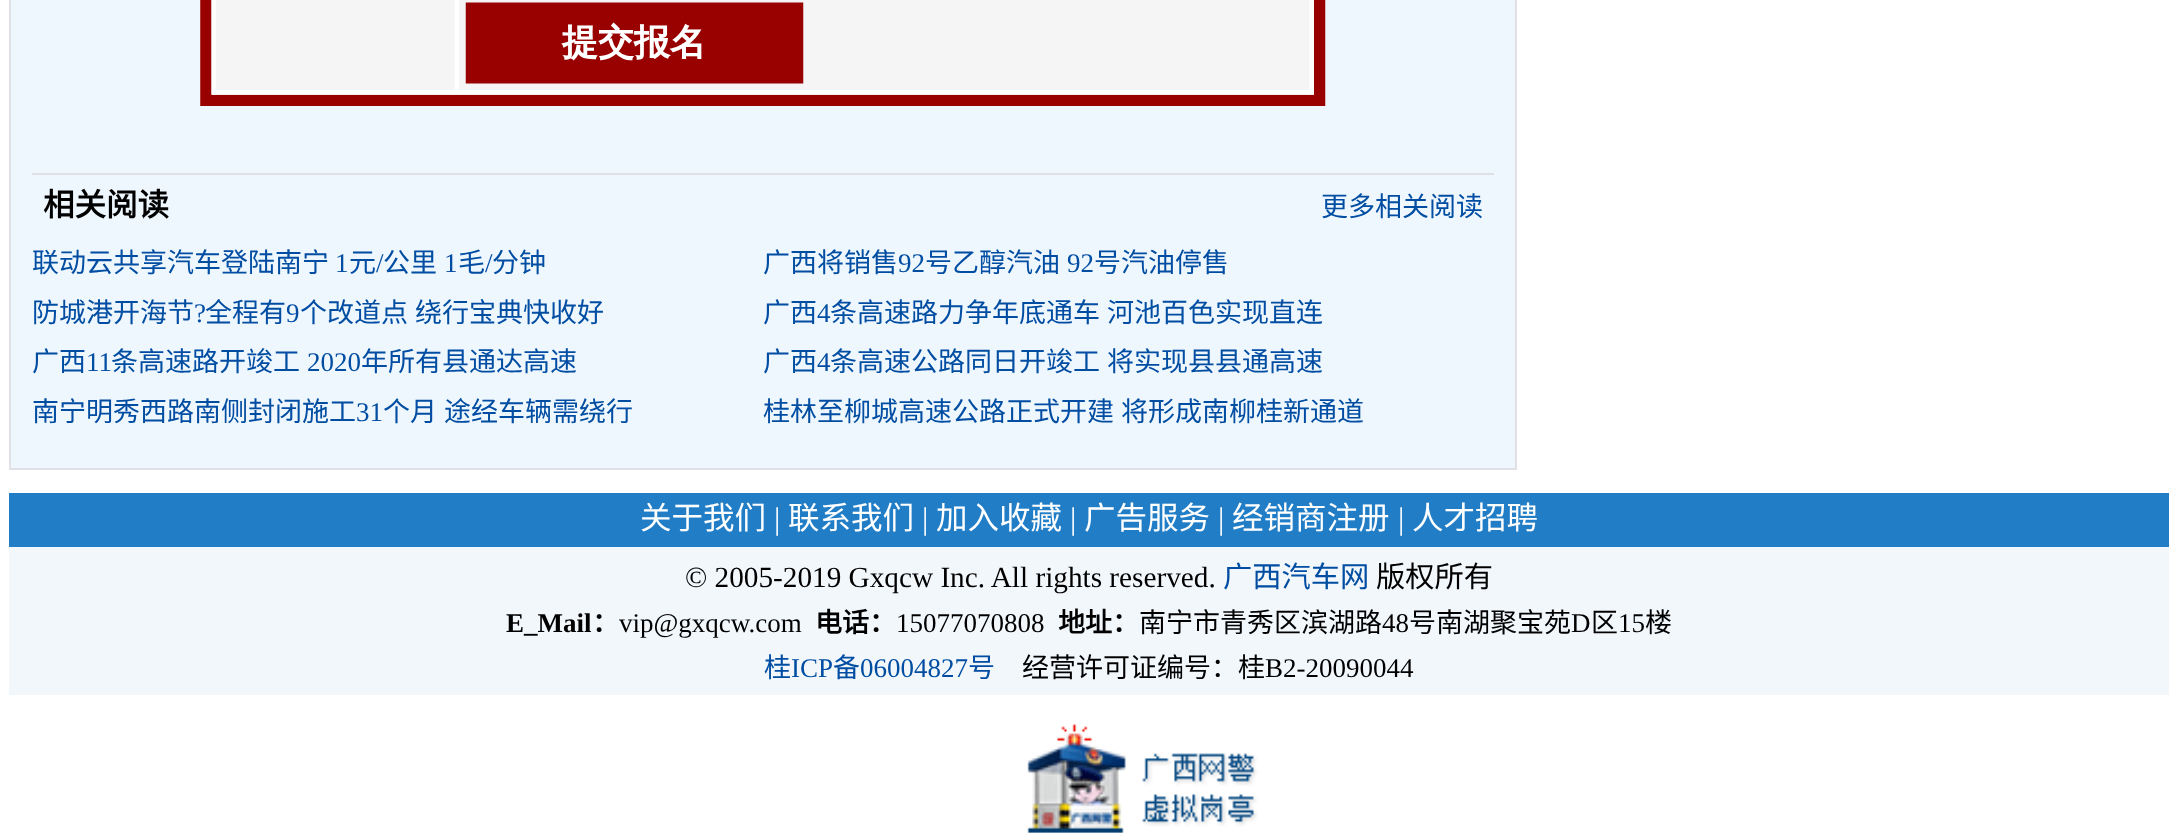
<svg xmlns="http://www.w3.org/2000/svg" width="2176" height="833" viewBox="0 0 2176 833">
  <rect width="100%" height="100%" fill="rgb(255,255,255)"/>
  <rect x="10" y="-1" width="1506" height="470" fill="rgb(239,247,254)" stroke="rgb(226,224,231)" stroke-width="2"/>
  <image x="200" y="0" width="1126" height="106" href="pic1.png"/>
  <rect x="32" y="173" width="1462" height="2" fill="rgb(226,224,231)"/>
  <text x="43" y="216" font-family="Noto Sans CJK SC" font-size="31.5" font-weight="bold" fill="rgb(0,0,0)">相关阅读</text>
  <g font-family="Noto Sans CJK SC" font-size="27" fill="rgb(1,77,162)">
    <text x="1321" y="216">更多相关阅读</text>
    <text x="32" y="272">联动云共享汽车登陆南宁</text>
  </g>
  <text x="335" y="272" font-family="Liberation Serif" font-size="27" fill="rgb(1,77,162)">1</text>
  <text x="349" y="272" font-family="Noto Sans CJK SC" font-size="27" fill="rgb(1,77,162)">元</text>
  <text x="376" y="272" font-family="Liberation Serif" font-size="27" fill="rgb(1,77,162)">/</text>
  <text x="383" y="272" font-family="Noto Sans CJK SC" font-size="27" fill="rgb(1,77,162)">公里</text>
  <text x="444" y="272" font-family="Liberation Serif" font-size="27" fill="rgb(1,77,162)">1</text>
  <text x="458" y="272" font-family="Noto Sans CJK SC" font-size="27" fill="rgb(1,77,162)">毛</text>
  <text x="485" y="272" font-family="Liberation Serif" font-size="27" fill="rgb(1,77,162)">/</text>
  <g font-family="Noto Sans CJK SC" font-size="27" fill="rgb(1,77,162)">
    <text x="492" y="272">分钟</text>
    <text x="763" y="272">广西将销售</text>
  </g>
  <text x="898" y="272" font-family="Liberation Serif" font-size="27" fill="rgb(1,77,162)">92</text>
  <text x="925" y="272" font-family="Noto Sans CJK SC" font-size="27" fill="rgb(1,77,162)">号乙醇汽油</text>
  <text x="1067" y="272" font-family="Liberation Serif" font-size="27" fill="rgb(1,77,162)">92</text>
  <g font-family="Noto Sans CJK SC" font-size="27" fill="rgb(1,77,162)">
    <text x="1094" y="272">号汽油停售</text>
    <text x="32" y="322">防城港开海节</text>
  </g>
  <text x="194" y="322" font-family="Liberation Serif" font-size="27" fill="rgb(1,77,162)">?</text>
  <text x="205" y="322" font-family="Noto Sans CJK SC" font-size="27" fill="rgb(1,77,162)">全程有</text>
  <text x="286" y="322" font-family="Liberation Serif" font-size="27" fill="rgb(1,77,162)">9</text>
  <g font-family="Noto Sans CJK SC" font-size="27" fill="rgb(1,77,162)">
    <text x="300" y="322" word-spacing="1">个改道点 绕行宝典快收好</text>
    <text x="763" y="322">广西</text>
  </g>
  <text x="817" y="322" font-family="Liberation Serif" font-size="27" fill="rgb(1,77,162)">4</text>
  <g font-family="Noto Sans CJK SC" font-size="27" fill="rgb(1,77,162)">
    <text x="830" y="322" word-spacing="1">条高速路力争年底通车 河池百色实现直连</text>
    <text x="32" y="371">广西</text>
  </g>
  <text x="86" y="371" font-family="Liberation Serif" font-size="27" fill="rgb(1,77,162)">11</text>
  <text x="111" y="371" font-family="Noto Sans CJK SC" font-size="27" fill="rgb(1,77,162)">条高速路开竣工</text>
  <text x="307" y="371" font-family="Liberation Serif" font-size="27" fill="rgb(1,77,162)">2020</text>
  <g font-family="Noto Sans CJK SC" font-size="27" fill="rgb(1,77,162)">
    <text x="361" y="371">年所有县通达高速</text>
    <text x="763" y="371">广西</text>
  </g>
  <text x="817" y="371" font-family="Liberation Serif" font-size="27" fill="rgb(1,77,162)">4</text>
  <g font-family="Noto Sans CJK SC" font-size="27" fill="rgb(1,77,162)">
    <text x="830" y="371" word-spacing="1">条高速公路同日开竣工 将实现县县通高速</text>
    <text x="32" y="421">南宁明秀西路南侧封闭施工</text>
  </g>
  <text x="356" y="421" font-family="Liberation Serif" font-size="27" fill="rgb(1,77,162)">31</text>
  <g font-family="Noto Sans CJK SC" font-size="27" fill="rgb(1,77,162)">
    <text x="383" y="421" word-spacing="1">个月 途经车辆需绕行</text>
    <text x="763" y="421" word-spacing="1">桂林至柳城高速公路正式开建 将形成南柳桂新通道</text>
  </g>
  <rect x="9" y="547" width="2160" height="148" fill="rgb(242,247,252)"/>
  <rect x="9" y="493" width="2160" height="54" fill="rgb(33,125,198)"/>
  <text x="640" y="529" font-family="Noto Sans CJK SC" font-size="31.5" fill="rgb(255,255,255)">关于我们</text>
  <text x="774" y="529" font-family="Liberation Serif" font-size="31.5" fill="rgb(255,255,255)">|</text>
  <text x="788" y="529" font-family="Noto Sans CJK SC" font-size="31.5" fill="rgb(255,255,255)">联系我们</text>
  <text x="922" y="529" font-family="Liberation Serif" font-size="31.5" fill="rgb(255,255,255)">|</text>
  <text x="936" y="529" font-family="Noto Sans CJK SC" font-size="31.5" fill="rgb(255,255,255)">加入收藏</text>
  <text x="1070" y="529" font-family="Liberation Serif" font-size="31.5" fill="rgb(255,255,255)">|</text>
  <text x="1084" y="529" font-family="Noto Sans CJK SC" font-size="31.5" fill="rgb(255,255,255)">广告服务</text>
  <text x="1218" y="529" font-family="Liberation Serif" font-size="31.5" fill="rgb(255,255,255)">|</text>
  <text x="1232" y="529" font-family="Noto Sans CJK SC" font-size="31.5" fill="rgb(255,255,255)">经销商注册</text>
  <text x="1398" y="529" font-family="Liberation Serif" font-size="31.5" fill="rgb(255,255,255)">|</text>
  <text x="1412" y="529" font-family="Noto Sans CJK SC" font-size="31.5" fill="rgb(255,255,255)">人才招聘</text>
  <text x="685" y="587" font-family="Liberation Serif" font-size="29.25" fill="rgb(0,0,0)">© 2005-2019 Gxqcw Inc. All rights reserved.</text>
  <text x="1223" y="587" font-family="Noto Sans CJK SC" font-size="29.25" fill="rgb(1,77,162)">广西汽车网</text>
  <text x="1376" y="587" font-family="Noto Sans CJK SC" font-size="29.25" fill="rgb(0,0,0)">版权所有</text>
  <text x="506" y="632" font-family="Liberation Serif" font-size="27" font-weight="bold" fill="rgb(0,0,0)">E_Mail</text>
  <text x="592" y="632" font-family="Noto Sans CJK SC" font-size="27" font-weight="bold" fill="rgb(0,0,0)">：</text>
  <text x="619" y="632" font-family="Liberation Serif" font-size="27" fill="rgb(0,0,0)">vip@gxqcw.com</text>
  <text x="815" y="632" font-family="Noto Sans CJK SC" font-size="27" font-weight="bold" fill="rgb(0,0,0)">电话：</text>
  <text x="896" y="632" font-family="Liberation Serif" font-size="27" fill="rgb(0,0,0)">15077070808</text>
  <text x="1058" y="632" font-family="Noto Sans CJK SC" font-size="27" font-weight="bold" fill="rgb(0,0,0)">地址：</text>
  <text x="1139" y="632" font-family="Noto Sans CJK SC" font-size="27" fill="rgb(0,0,0)">南宁市青秀区滨湖路</text>
  <text x="1382" y="632" font-family="Liberation Serif" font-size="27" fill="rgb(0,0,0)">48</text>
  <text x="1409" y="632" font-family="Noto Sans CJK SC" font-size="27" fill="rgb(0,0,0)">号南湖聚宝苑</text>
  <text x="1571" y="632" font-family="Liberation Serif" font-size="27" fill="rgb(0,0,0)">D</text>
  <text x="1591" y="632" font-family="Noto Sans CJK SC" font-size="27" fill="rgb(0,0,0)">区</text>
  <text x="1618" y="632" font-family="Liberation Serif" font-size="27" fill="rgb(0,0,0)">15</text>
  <text x="1645" y="632" font-family="Noto Sans CJK SC" font-size="27" fill="rgb(0,0,0)">楼</text>
  <text x="764" y="677" font-family="Noto Sans CJK SC" font-size="27" fill="rgb(1,77,162)">桂</text>
  <text x="791" y="677" font-family="Liberation Serif" font-size="27" fill="rgb(1,77,162)">ICP</text>
  <text x="833" y="677" font-family="Noto Sans CJK SC" font-size="27" fill="rgb(1,77,162)">备</text>
  <text x="860" y="677" font-family="Liberation Serif" font-size="27" fill="rgb(1,77,162)">06004827</text>
  <text x="968" y="677" font-family="Noto Sans CJK SC" font-size="27" fill="rgb(1,77,162)">号</text>
  <text x="1022" y="677" font-family="Noto Sans CJK SC" font-size="27" fill="rgb(0,0,0)">经营许可证编号：桂</text>
  <text x="1265" y="677" font-family="Liberation Serif" font-size="27" fill="rgb(0,0,0)">B2-20090044</text>
  <image x="1027" y="724" width="231" height="109" href="pic2.png"/>
</svg>
